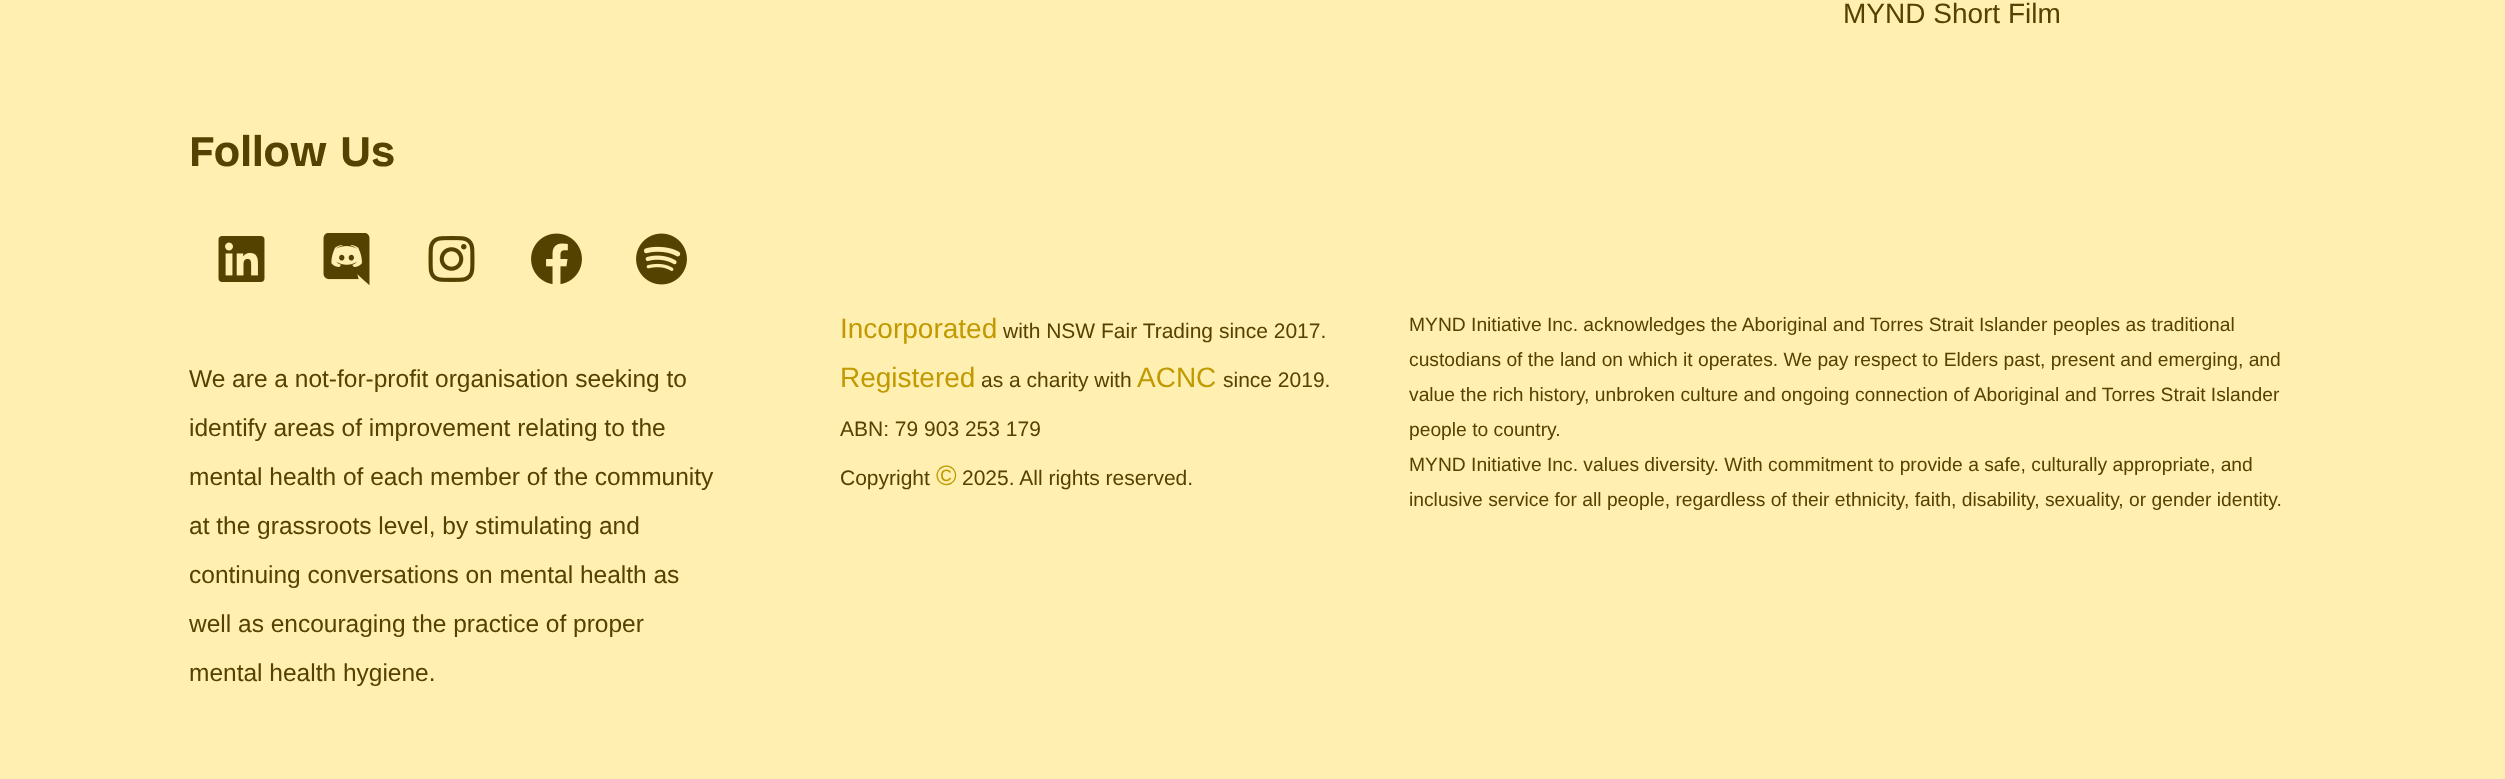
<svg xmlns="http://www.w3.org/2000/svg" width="2505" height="779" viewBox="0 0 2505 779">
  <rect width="100%" height="100%" fill="rgb(255,239,176)"/>
  <text x="189" y="166" word-spacing="3" font-family="Bricolage Grotesque" font-size="43.75" font-weight="bold" fill="rgb(83,66,0)">Follow Us</text>
  <image x="218" y="236" width="47" height="46" href="pic1.png"/>
  <image x="323" y="233" width="47" height="52" href="pic2.png"/>
  <image x="428" y="236" width="47" height="46" href="pic3.png"/>
  <image x="531" y="233" width="51" height="52" href="pic4.png"/>
  <image x="636" y="233" width="51" height="52" href="pic5.png"/>
  <g font-family="Liberation Sans" font-size="24.5" fill="rgb(83,66,0)">
    <text x="189" y="387">We are a not-for-profit organisation seeking to</text>
    <text x="189" y="436">identify areas of improvement relating to the</text>
    <text x="189" y="485">mental health of each member of the community</text>
    <text x="189" y="534">at the grassroots level, by stimulating and</text>
    <text x="189" y="583">continuing conversations on mental health as</text>
    <text x="189" y="632">well as encouraging the practice of proper</text>
    <text x="189" y="681">mental health hygiene.</text>
  </g>
  <text x="1843" y="23" font-family="Liberation Sans" font-size="28" fill="rgb(83,66,0)">MYND Short Film</text>
  <text x="840" y="338" font-family="Liberation Sans" font-size="28" fill="rgb(193,153,0)">Incorporated</text>
  <text x="1003" y="338" font-family="Liberation Sans" font-size="21" fill="rgb(83,66,0)">with NSW Fair Trading since 2017.</text>
  <text x="840" y="387" font-family="Liberation Sans" font-size="28" fill="rgb(193,153,0)">Registered</text>
  <text x="981" y="387" font-family="Liberation Sans" font-size="21" fill="rgb(83,66,0)">as a charity with</text>
  <text x="1137" y="387" font-family="Liberation Sans" font-size="28" fill="rgb(193,153,0)">ACNC</text>
  <g font-family="Liberation Sans" font-size="21" fill="rgb(83,66,0)">
    <text x="1223" y="387">since 2019.</text>
    <text x="840" y="436">ABN: 79 903 253 179</text>
    <text x="840" y="485">Copyright</text>
  </g>
  <text x="936" y="485" font-family="Liberation Sans" font-size="28" fill="rgb(193,153,0)">©</text>
  <text x="962" y="485" font-family="Liberation Sans" font-size="21" fill="rgb(83,66,0)">2025. All rights reserved.</text>
  <g font-family="Liberation Sans" font-size="19.25" fill="rgb(83,66,0)">
    <text>
      <tspan x="1409" y="331">MYND Initiative Inc. acknowledges the Aboriginal and Torres Strait Islander peoples as traditional</tspan>
      <tspan x="1409" y="366">custodians of the land on which it operates. We pay respect to Elders past, present and emerging, and</tspan>
      <tspan x="1409" y="401">value the rich history, unbroken culture and ongoing connection of Aboriginal and Torres Strait Islander</tspan>
      <tspan x="1409" y="436">people to country.</tspan>
      <tspan x="1409" y="471">MYND Initiative Inc. values diversity. With commitment to provide a safe, culturally appropriate, and</tspan>
      <tspan x="1409" y="506">inclusive service for all people, regardless of their ethnicity, faith, disability, sexuality, or gender identity.</tspan>
    </text>
  </g>
</svg>
